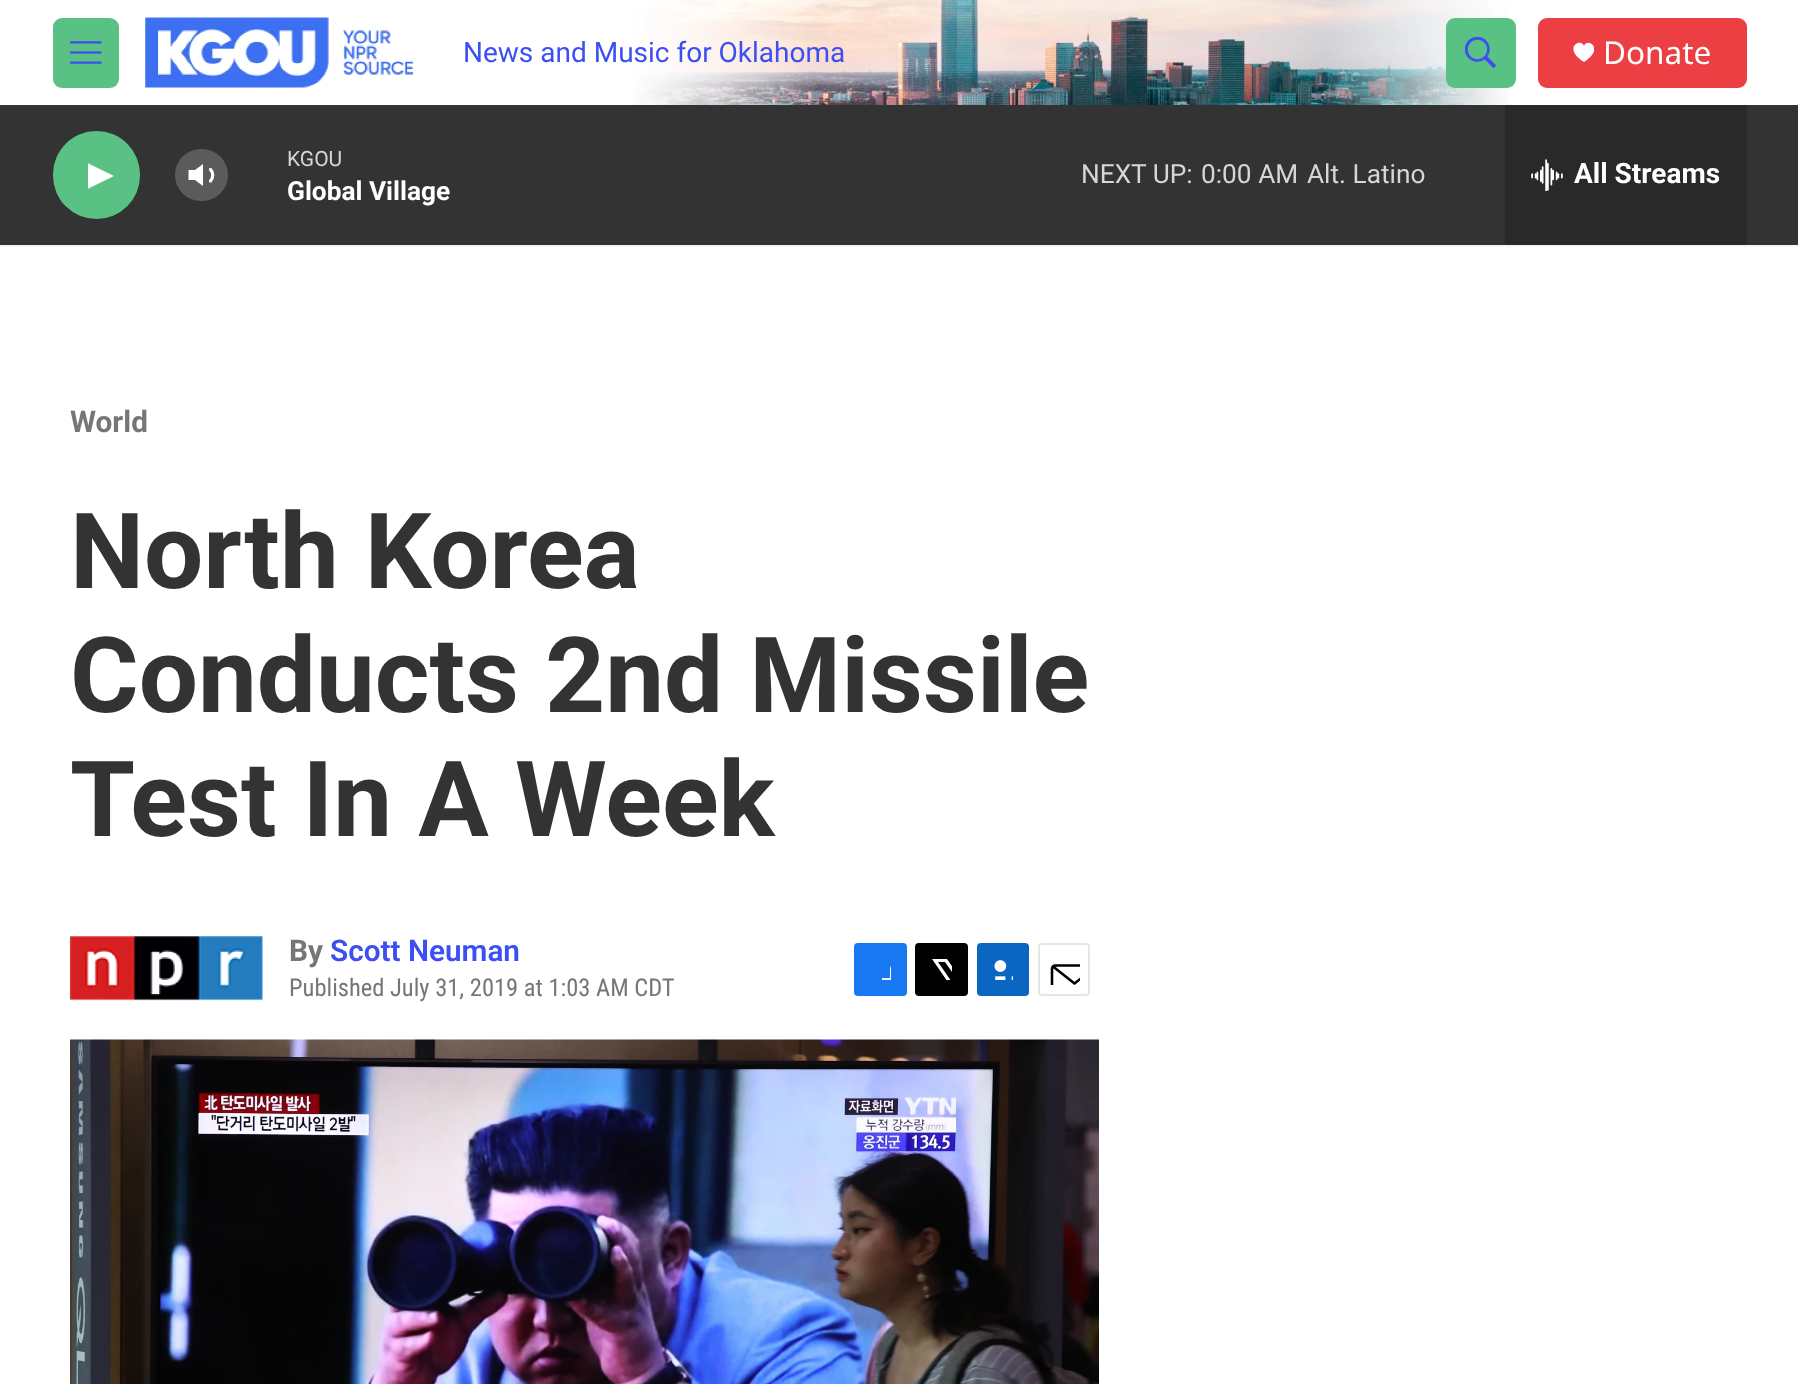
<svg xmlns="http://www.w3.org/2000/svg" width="1798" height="1384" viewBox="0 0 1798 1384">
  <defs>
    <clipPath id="clip1"><rect x="1573" y="42" width="21" height="21"/></clipPath>
    <clipPath id="clip2"><rect x="88" y="159" width="26" height="34"/></clipPath>
    <clipPath id="clip3"><rect x="870" y="959" width="21" height="21"/></clipPath>
    <clipPath id="clip4"><rect x="931" y="959" width="21" height="21"/></clipPath>
    <clipPath id="clip5"><rect x="1048" y="954" width="32" height="31"/></clipPath>
  </defs>
  <rect width="100%" height="100%" fill="rgb(255,255,255)"/>
  <rect x="0" y="245" width="1798" height="2" fill="rgb(245,245,245)"/>
  <image x="634" y="0" width="875" height="105" href="pic1.png"/>
  <rect x="53" y="18" width="66" height="70" rx="9" fill="rgb(89,193,131)"/>
  <image x="70" y="41" width="32" height="23" href="pic2.png"/>
  <image x="145" y="17" width="268" height="71" href="pic3.png"/>
  <text x="463" y="62" font-family="Roboto" font-size="28" fill="rgb(59,79,242)">News and Music for Oklahoma</text>
  <rect x="1446" y="18" width="70" height="70" rx="9" fill="rgb(89,193,131)"/>
  <image x="1465" y="37" width="31" height="31" href="pic4.png"/>
  <rect x="1538" y="18" width="209" height="70" rx="9" fill="rgb(235,63,67)"/>
  <g clip-path="url(#clip1)">
    <path d="M1584 46C1580.5 37 1562 48.5 1584 62C1605.5 48.5 1587 37 1584 46Z" fill="rgb(255,255,255)"/>
  </g>
  <text x="1603" y="64" font-family="Noto Sans" font-size="31.5" fill="rgb(255,255,255)">Donate</text>
  <rect x="0" y="105" width="1798" height="140" fill="rgb(51,51,51)"/>
  <rect x="53" y="131" width="87" height="88" rx="43.5" fill="rgb(89,193,131)"/>
  <g clip-path="url(#clip2)">
    <path d="M87.5 163L114 176L87.5 189Z" fill="rgb(255,255,255)"/>
  </g>
  <path d="M203 164L195 170H188.5V180H195L203 186Z" fill="rgb(255,255,255)"/>
  <path d="M210.5 169.5C213.5 172.5 213.5 177.5 210.5 181" fill="none" stroke="rgb(255,255,255)" stroke-width="3.2" stroke-linecap="round" stroke-linejoin="round"/>
  <rect x="175" y="149" width="53" height="52" rx="26" fill="rgba(255,255,255,0.2)"/>
  <text x="287" y="166" font-family="Roboto" font-size="21" fill="rgb(214,214,214)">KGOU</text>
  <text x="287" y="200" font-family="'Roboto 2'" font-size="26.25" font-weight="bold" fill="rgb(255,255,255)">Global Village</text>
  <g font-family="Roboto" font-size="26.25" fill="rgb(214,214,214)">
    <text x="1081" y="183">NEXT UP:</text>
    <text x="1201" y="183">0:00 AM</text>
    <text x="1307" y="183">Alt. Latino</text>
  </g>
  <rect x="1505" y="105" width="242" height="140" fill="rgb(41,41,41)"/>
  <image x="1531" y="159" width="32" height="32" href="pic5.png"/>
  <text x="1574" y="183" font-family="'Roboto 2'" font-size="28" font-weight="bold" fill="rgb(255,255,255)">All Streams</text>
  <text x="70" y="432" font-family="Roboto" font-size="29.75" font-weight="bold" fill="rgb(118,118,118)">World</text>
  <g font-family="Roboto" font-size="105" font-weight="bold" fill="rgb(51,51,51)">
    <text>
      <tspan x="70" y="588">North Korea</tspan>
      <tspan x="70" y="712">Conducts 2nd Missile</tspan>
      <tspan x="70" y="836">Test In A Week</tspan>
    </text>
  </g>
  <image x="70" y="936" width="193" height="65" href="pic6.png"/>
  <text x="289" y="961" font-family="Roboto" font-size="29.75" font-weight="bold" fill="rgb(118,118,118)">By</text>
  <text x="330" y="961" font-family="Roboto" font-size="29.75" font-weight="600" fill="rgb(59,79,242)">Scott Neuman</text>
  <text x="289" y="996" font-family="Roboto Condensed" font-size="24.5" fill="rgb(118,118,118)">Published July 31, 2019 at 1:03 AM CDT</text>
  <rect x="854" y="943" width="53" height="53" rx="4" fill="rgb(23,120,242)"/>
  <g clip-path="url(#clip3)">
    <path d="M899 996H890V987H882V978H890V969C891 960.5 899.5 959 907 960V968C897.5 968 899 970.5 899 978H907L906 987H899Z" fill="rgb(255,255,255)"/>
  </g>
  <rect x="915" y="943" width="53" height="53" rx="4" fill="rgb(0,0,0)"/>
  <g clip-path="url(#clip4)">
    <path d="M962 981L968 989.5C968 991 968 993 967.5 994L945 962H938L961.5 996H957.5L954 991L949.5 996H945L952 988L932 959H947L960 978L968 969V974Z" fill="rgb(255,255,255)"/>
  </g>
  <rect x="977" y="943" width="52" height="53" rx="4" fill="rgb(10,102,193)"/>
  <image x="994" y="960" width="19" height="20" href="pic7.png"/>
  <rect x="1039" y="944" width="50" height="51" rx="3" fill="none" stroke="rgb(230,230,230)" stroke-width="2"/>
  <g clip-path="url(#clip5)">
    <path d="M1097 992C1097 994 1095.5 995.5 1094 995.5H1055C1053.5 995.5 1052 994 1052 992V968.5C1052 967 1053.5 965.5 1055 965.5H1094C1095.5 965.5 1097 967 1097 968.5ZM1096 966.5L1074.5 983.5L1053 966.5" fill="none" stroke="rgb(0,0,0)" stroke-width="2.6" stroke-linecap="round" stroke-linejoin="round"/>
  </g>
  <image x="70" y="1039" width="1029" height="345" href="pic8.png"/>
</svg>
